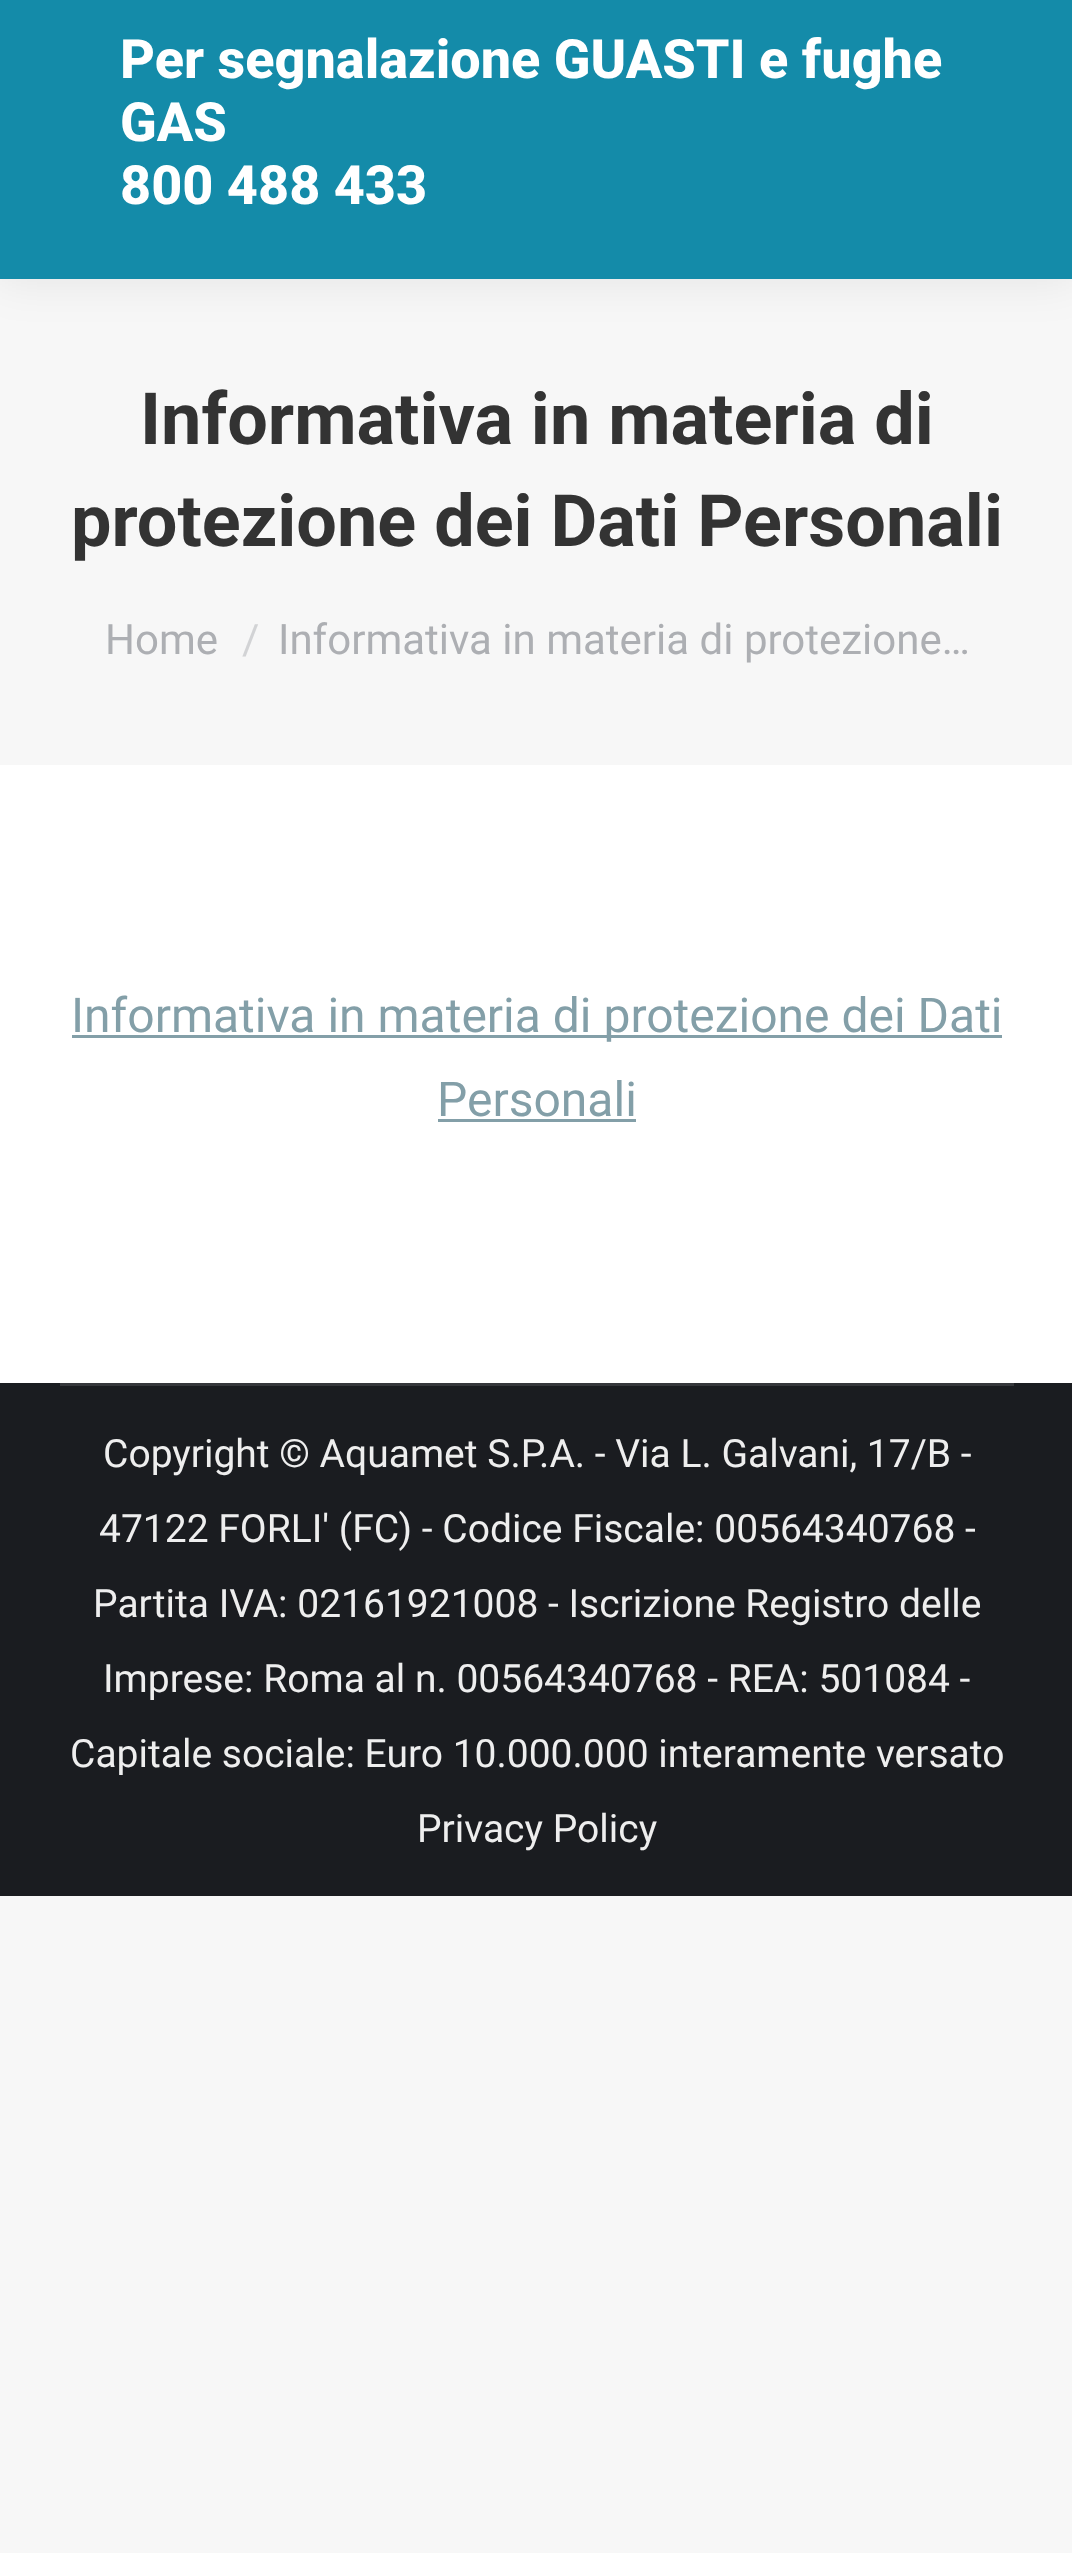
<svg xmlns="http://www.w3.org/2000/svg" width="1072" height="2553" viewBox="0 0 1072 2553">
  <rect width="100%" height="100%" fill="rgb(247,247,247)"/>
  <rect x="0" y="765" width="1072" height="618" fill="rgb(255,255,255)"/>
  <rect x="-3" y="-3" width="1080" height="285" fill="rgba(0,0,0,0.07)" filter="blur(22.5px)"/>
  <rect x="0" y="0" width="1072" height="279" fill="rgb(20,139,169)"/>
  <g font-family="Roboto" font-size="54" font-weight="800" fill="rgb(255,255,255)">
    <text>
      <tspan x="120" y="78">Per segnalazione GUASTI e fughe</tspan>
      <tspan x="120" y="141">GAS</tspan>
      <tspan x="120" y="204">800 488 433</tspan>
    </text>
  </g>
  <g font-family="Roboto" font-size="72" font-weight="bold" fill="rgb(51,51,51)">
    <text x="140" y="444">Informativa in materia di</text>
    <text x="71" y="546">protezione dei Dati Personali</text>
  </g>
  <text x="105" y="654" font-family="Roboto" font-size="42" fill="rgb(173,175,179)">Home</text>
  <text x="242" y="654" font-family="Roboto" font-size="42" fill="rgb(210,211,213)">/</text>
  <text x="278" y="654" font-family="Roboto" font-size="42" fill="rgb(173,175,179)">Informativa in materia di protezione…</text>
  <rect x="72" y="1035" width="930" height="3" fill="rgb(131,159,168)"/>
  <g font-family="Roboto" font-size="48" fill="rgb(131,159,168)">
    <text x="71" y="1032">Informativa in materia di protezione dei Dati</text>
    <text x="437" y="1116">Personali</text>
  </g>
  <rect x="438" y="1119" width="198" height="3" fill="rgb(131,159,168)"/>
  <rect x="0" y="1383" width="1072" height="513" fill="rgb(26,28,32)"/>
  <rect x="60" y="1383" width="954" height="3" fill="rgb(53,55,59)"/>
  <g font-family="Roboto" font-size="39" fill="rgb(238,238,238)">
    <text x="103" y="1467">Copyright © Aquamet S.P.A. - Via L. Galvani, 17/B -</text>
    <text x="99" y="1542">47122 FORLI' (FC) - Codice Fiscale: 00564340768 -</text>
    <text x="93" y="1617">Partita IVA: 02161921008 - Iscrizione Registro delle</text>
    <text x="103" y="1692">Imprese: Roma al n. 00564340768 - REA: 501084 -</text>
    <text x="70" y="1767">Capitale sociale: Euro 10.000.000 interamente versato</text>
    <text x="417" y="1842">Privacy Policy</text>
  </g>
</svg>
